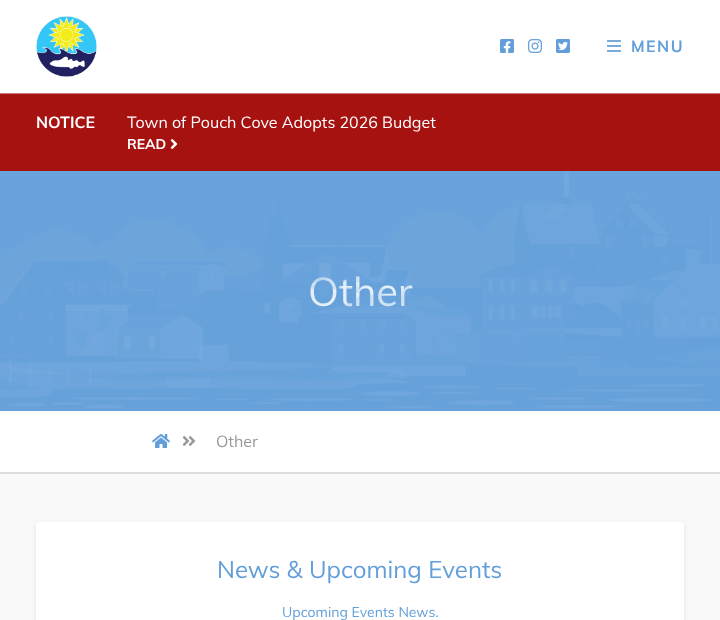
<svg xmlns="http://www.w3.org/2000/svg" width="720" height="620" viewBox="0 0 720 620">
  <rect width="100%" height="100%" fill="rgb(255,255,255)"/>
  <image x="36" y="16" width="61" height="61" href="pic1.png"/>
  <image x="500" y="39" width="14" height="14" href="pic2.png"/>
  <image x="528" y="39" width="14" height="14" href="pic3.png"/>
  <image x="556" y="39" width="14" height="14" href="pic4.png"/>
  <image x="607" y="40" width="14" height="12" href="pic5.png"/>
  <text x="631" y="52" font-family="Muli" font-size="16" font-weight="bold" letter-spacing="1.5" fill="rgb(98,158,217)">MENU</text>
  <rect x="0" y="94" width="720" height="77" fill="rgb(166,18,16)"/>
  <rect x="0" y="93" width="720" height="1" fill="rgb(206,125,124)"/>
  <text x="36" y="128" font-family="Muli" font-size="16" font-weight="bold" fill="rgb(255,255,255)">NOTICE</text>
  <text x="127" y="128" font-family="Muli" font-size="16" fill="rgb(255,255,255)">Town of Pouch Cove Adopts 2026 Budget</text>
  <text x="127" y="149" font-family="Muli" font-size="14" font-weight="bold" fill="rgb(255,255,255)">READ</text>
  <image x="170" y="139" width="8" height="10" href="pic6.png"/>
  <rect x="0" y="171" width="720" height="240" fill="rgb(98,158,217)"/>
  <text x="308" y="306" font-family="Muli" font-size="40" fill="rgb(255,255,255)">Other</text>
  <image x="0" y="171" width="720" height="240" href="pic7.png"/>
  <rect x="0" y="472" width="720" height="2" fill="rgb(220,220,220)"/>
  <image x="152" y="434" width="18" height="14" href="pic8.png"/>
  <image x="182" y="436" width="14" height="10" href="pic9.png"/>
  <text x="216" y="447" font-family="Muli" font-size="16" fill="rgb(153,153,153)">Other</text>
  <rect x="0" y="474" width="720" height="146" fill="rgb(249,249,249)"/>
  <rect x="36" y="524" width="648" height="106" rx="4" fill="rgba(0,0,0,0.1)" filter="blur(2px)"/>
  <rect x="36" y="522" width="648" height="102" rx="4" fill="rgb(255,255,255)"/>
  <text x="217" y="578" font-family="Muli" font-size="24" fill="rgb(98,158,217)">News &amp; Upcoming Events</text>
  <text x="282" y="617" font-family="Muli" font-size="14" fill="rgb(98,158,217)">Upcoming Events News.</text>
</svg>
